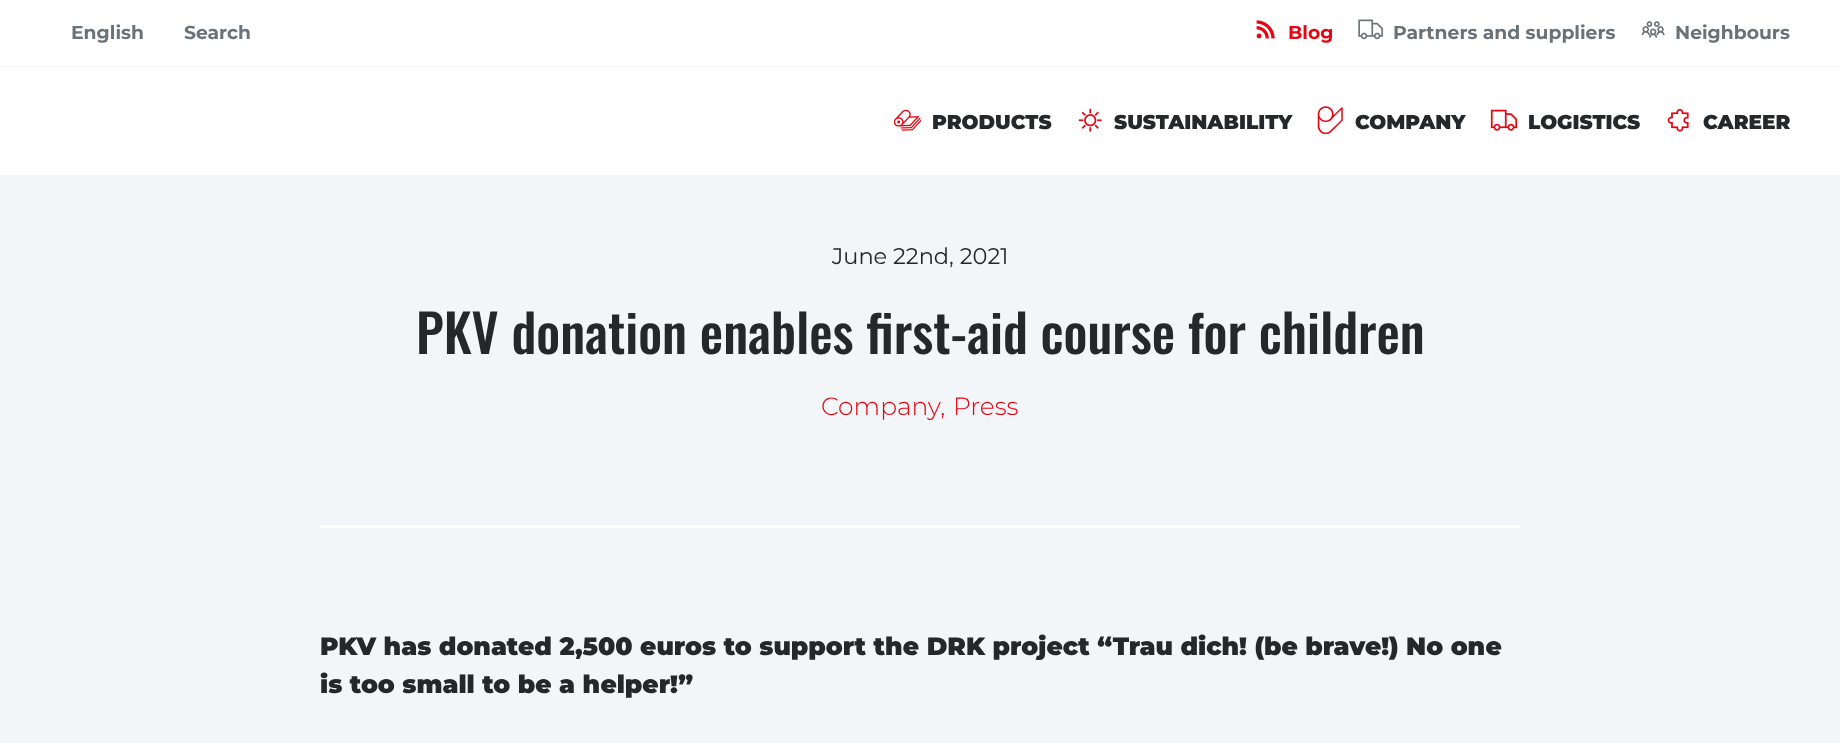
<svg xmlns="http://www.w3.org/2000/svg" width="1840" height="743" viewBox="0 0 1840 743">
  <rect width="100%" height="100%" fill="rgb(243,246,248)"/>
  <rect x="0" y="0" width="1840" height="175" fill="rgb(255,255,255)"/>
  <rect x="0" y="66" width="1840" height="1" fill="rgb(243,246,248)"/>
  <g font-family="Montserrat" font-size="18.75" font-weight="bold" fill="rgb(106,113,119)">
    <text x="71" y="39">English</text>
    <text x="184" y="39">Search</text>
  </g>
  <image x="1256" y="20" width="19" height="19" href="pic1.png"/>
  <text x="1288" y="39" font-family="Montserrat" font-size="18.75" font-weight="bold" fill="rgb(227,6,19)">Blog</text>
  <image x="1358" y="19" width="25" height="21" href="pic2.png"/>
  <text x="1393" y="39" font-family="Montserrat" font-size="18.75" font-weight="bold" fill="rgb(106,113,119)">Partners and suppliers</text>
  <image x="1641" y="21" width="24" height="17" href="pic3.png"/>
  <text x="1675" y="39" font-family="Montserrat" font-size="18.75" font-weight="bold" fill="rgb(106,113,119)">Neighbours</text>
  <image x="894" y="109" width="27" height="22" href="pic4.png"/>
  <text x="932" y="129" font-family="Montserrat" font-size="20" font-weight="900" fill="rgb(37,40,42)">PRODUCTS</text>
  <image x="1078" y="108" width="24" height="24" href="pic5.png"/>
  <text x="1114" y="129" font-family="Montserrat" font-size="20" font-weight="900" fill="rgb(37,40,42)">SUSTAINABILITY</text>
  <image x="1317" y="106" width="26" height="28" href="pic6.png"/>
  <text x="1355" y="129" font-family="Montserrat" font-size="20" font-weight="900" fill="rgb(37,40,42)">COMPANY</text>
  <image x="1490" y="109" width="28" height="22" href="pic7.png"/>
  <text x="1528" y="129" font-family="Montserrat" font-size="20" font-weight="900" fill="rgb(37,40,42)">LOGISTICS</text>
  <image x="1667" y="108" width="22" height="24" href="pic8.png"/>
  <text x="1703" y="129" font-family="Montserrat" font-size="20" font-weight="900" fill="rgb(37,40,42)">CAREER</text>
  <text x="832" y="264" font-family="Montserrat" font-size="22.5" fill="rgb(37,40,42)">June 22nd, 2021</text>
  <text x="416" y="354" font-family="Oswald" font-size="52.5" font-weight="500" fill="rgb(37,40,42)">PKV donation enables first-aid course for children</text>
  <g font-family="Montserrat" font-size="25" font-weight="300" fill="rgb(227,6,19)">
    <text x="821" y="415">Company,</text>
    <text x="953" y="415">Press</text>
  </g>
  <rect x="320" y="525" width="1200" height="3" fill="rgb(255,255,255)"/>
  <g font-family="Montserrat" font-size="25" font-weight="900" fill="rgb(37,40,42)">
    <text>
      <tspan x="320" y="655">PKV has donated 2,500 euros to support the DRK project “Trau dich! (be brave!) No one</tspan>
      <tspan x="320" y="693">is too small to be a helper!”</tspan>
    </text>
  </g>
</svg>
